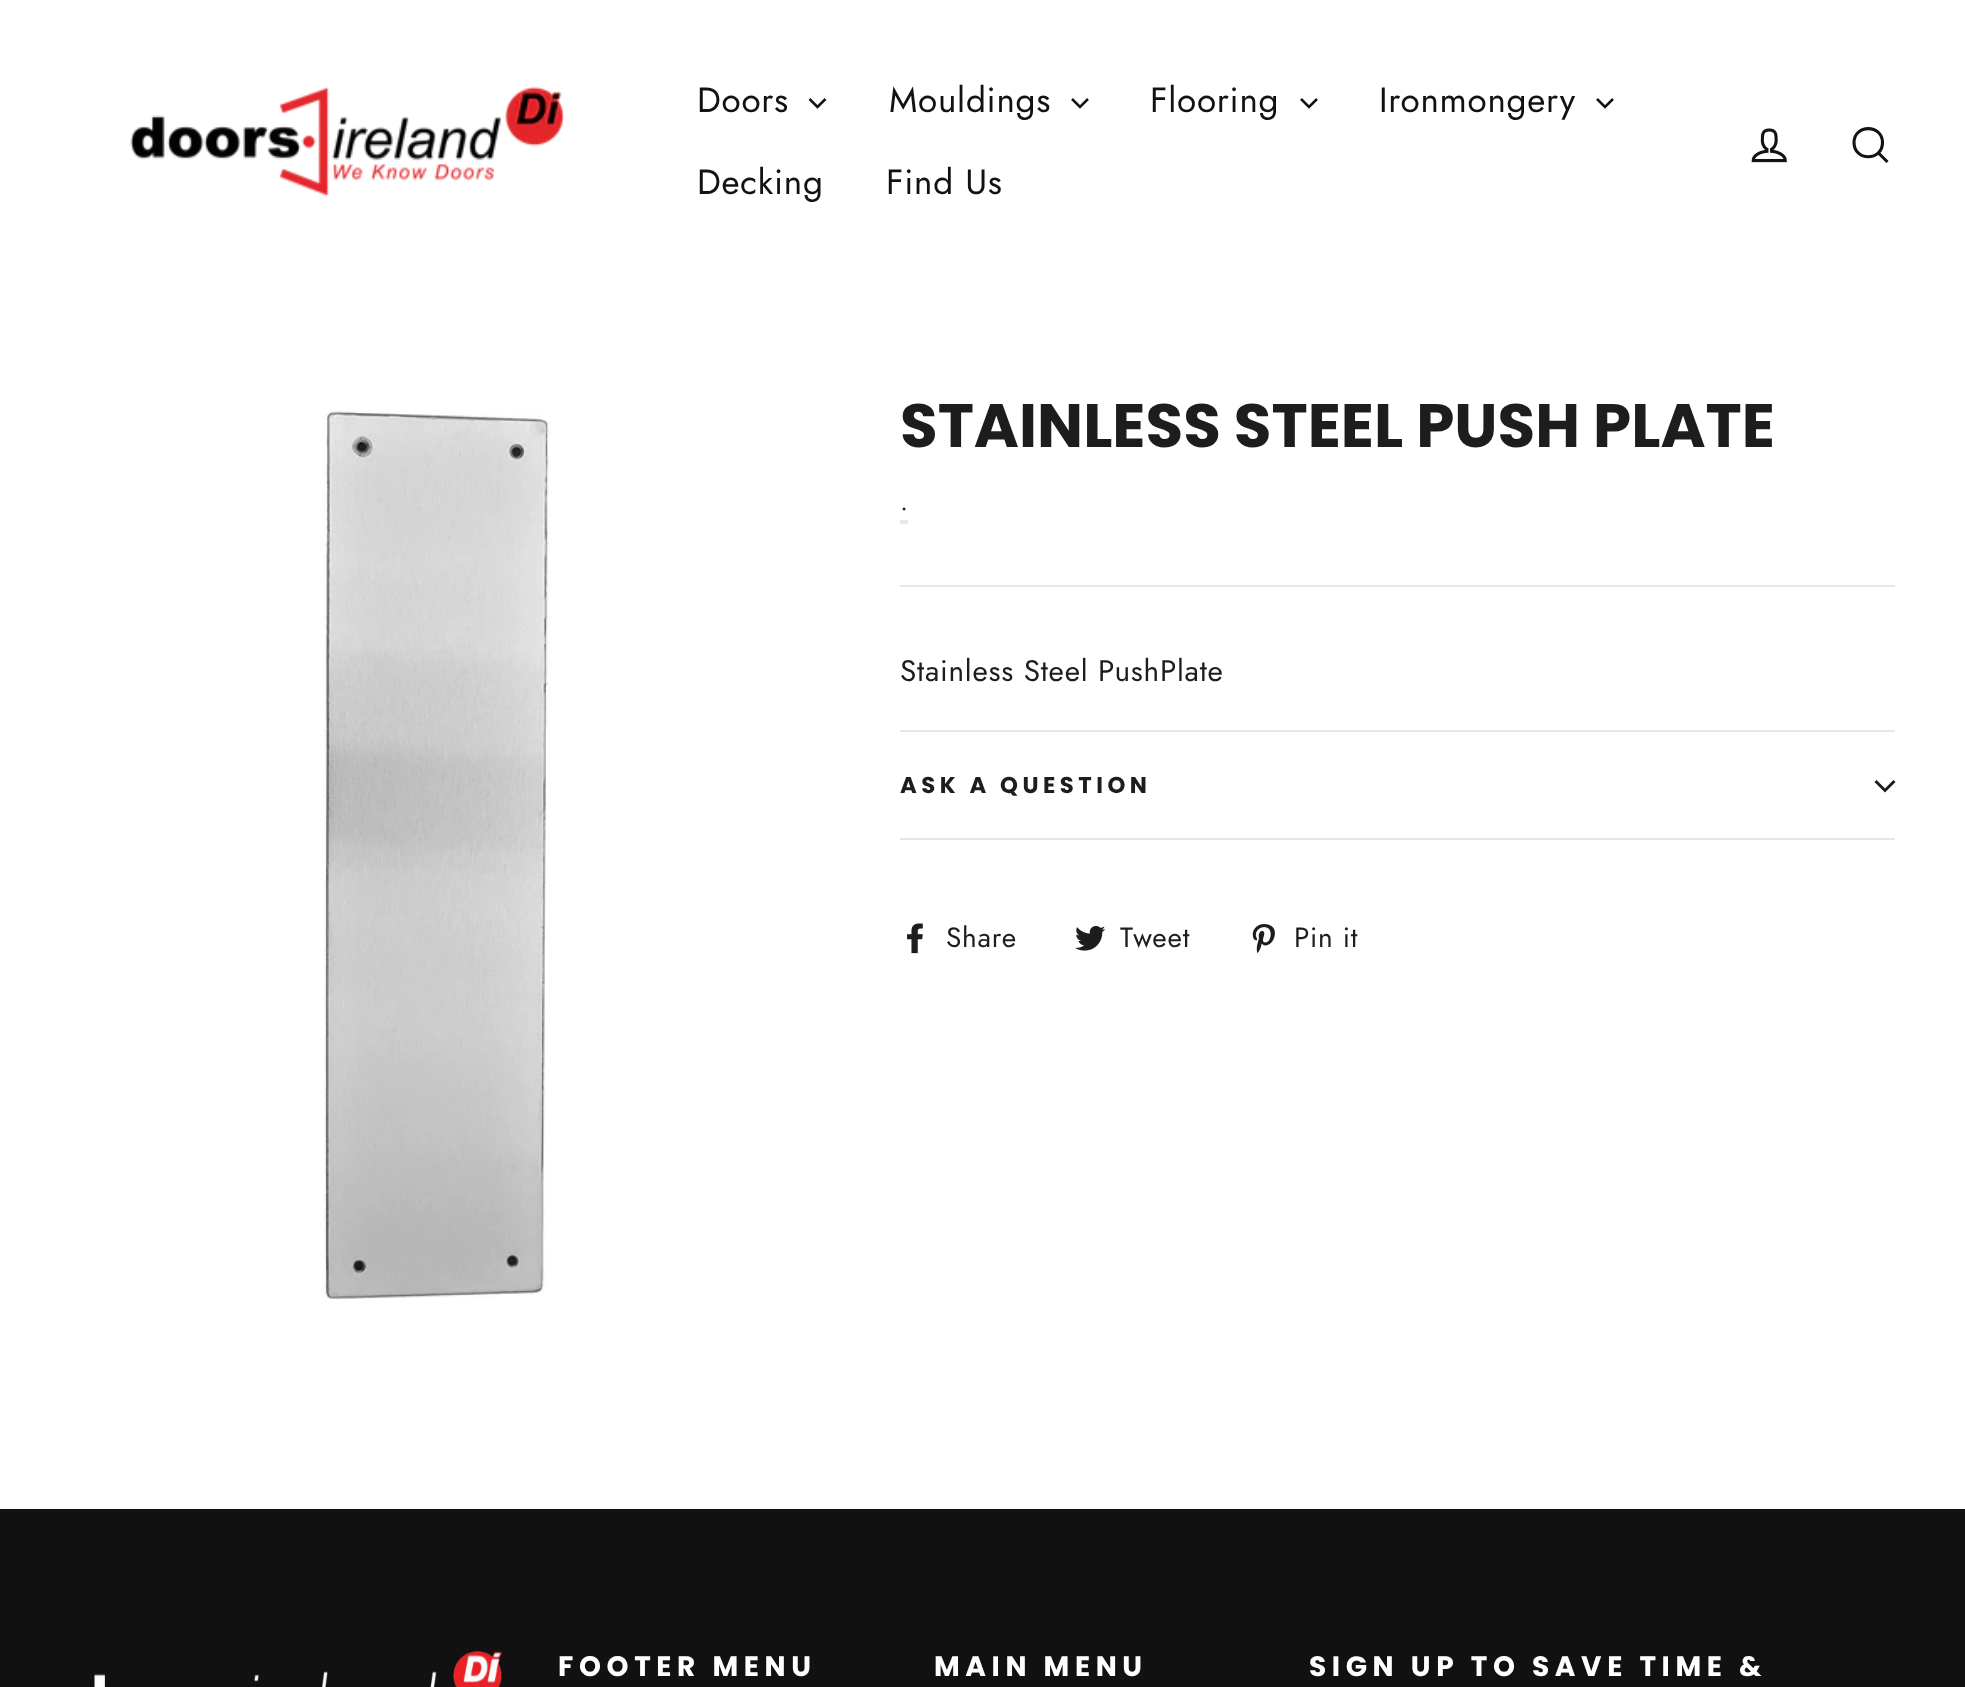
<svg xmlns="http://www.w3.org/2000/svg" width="1965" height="1687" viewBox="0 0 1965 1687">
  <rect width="100%" height="100%" fill="rgb(255,255,255)"/>
  <image x="130" y="86" width="435" height="111" href="pic1.png"/>
  <text x="697" y="112" font-family="Jost" font-size="35" letter-spacing="0.75" fill="rgb(18,18,18)">Doors</text>
  <path d="M809.5 99L817.5 107L825.5 99" fill="none" stroke="rgb(18,18,18)" stroke-width="2.5"/>
  <text x="889" y="112" font-family="Jost" font-size="35" letter-spacing="0.75" fill="rgb(18,18,18)">Mouldings</text>
  <path d="M1072 99L1080 107L1088 99" fill="none" stroke="rgb(18,18,18)" stroke-width="2.5"/>
  <text x="1150" y="112" font-family="Jost" font-size="35" letter-spacing="0.75" fill="rgb(18,18,18)">Flooring</text>
  <path d="M1301 99L1309 107L1317 99" fill="none" stroke="rgb(18,18,18)" stroke-width="2.5"/>
  <text x="1379" y="112" font-family="Jost" font-size="35" letter-spacing="0.75" fill="rgb(18,18,18)">Ironmongery</text>
  <path d="M1597 99L1605 107L1613 99" fill="none" stroke="rgb(18,18,18)" stroke-width="2.5"/>
  <g font-family="Jost" font-size="35" letter-spacing="0.75" fill="rgb(18,18,18)">
    <text x="697" y="194">Decking</text>
    <text x="886" y="194">Find Us</text>
  </g>
  <image x="1751" y="128" width="36" height="35" href="pic2.png"/>
  <path d="M1882.5 142.5C1882.5 161.5 1854 161.5 1854 142.5C1854 124 1882.5 124 1882.5 142.5ZM1887.5 162L1878.5 153" fill="none" stroke="rgb(18,18,18)" stroke-width="3.1"/>
  <image x="323" y="409" width="228" height="890" href="pic3.png"/>
  <text x="900" y="447" font-family="Poppins" font-size="61.25" font-weight="bold" fill="rgb(28,29,29)">STAINLESS STEEL PUSH PLATE</text>
  <text x="900" y="510" font-family="Jost" font-size="27" letter-spacing="0.75" fill="rgb(28,29,29)">.</text>
  <rect x="900" y="520" width="8" height="4" fill="rgb(232,232,232)"/>
  <rect x="900" y="585" width="995" height="2" fill="rgb(232,232,225)"/>
  <text x="900" y="681" font-family="Jost" font-size="29.75" letter-spacing="0.75" fill="rgb(28,29,29)">Stainless Steel PushPlate</text>
  <rect x="900" y="838" width="995" height="2" fill="rgb(232,232,225)"/>
  <rect x="900" y="730" width="995" height="2" fill="rgb(232,232,225)"/>
  <text x="900" y="793" font-family="Poppins" font-size="22.75" font-weight="bold" letter-spacing="4.5" fill="rgb(28,29,29)">ASK A QUESTION</text>
  <path d="M1875.5 781L1885 790.5L1894.5 781" fill="none" stroke="rgb(28,29,29)" stroke-width="3"/>
  <image x="907" y="923" width="16" height="31" href="pic4.png"/>
  <text x="946" y="947" font-family="Jost" font-size="28" letter-spacing="0.75" fill="rgb(28,29,29)">Share</text>
  <image x="1075" y="926" width="31" height="25" href="pic5.png"/>
  <text x="1120" y="947" font-family="Jost" font-size="28" letter-spacing="0.75" fill="rgb(28,29,29)">Tweet</text>
  <image x="1252" y="924" width="23" height="29" href="pic6.png"/>
  <text x="1294" y="947" font-family="Jost" font-size="28" letter-spacing="0.75" fill="rgb(28,29,29)">Pin it</text>
  <rect x="0" y="1509" width="1965" height="178" fill="rgb(17,17,17)"/>
  <image x="94" y="1650" width="408" height="37" href="pic7.png"/>
  <g font-family="Poppins" font-size="28" font-weight="bold" letter-spacing="5.6" fill="rgb(255,255,255)">
    <text x="558" y="1676">FOOTER MENU</text>
    <text x="934" y="1676">MAIN MENU</text>
    <text x="1309" y="1676">SIGN UP TO SAVE TIME &amp;</text>
  </g>
</svg>
